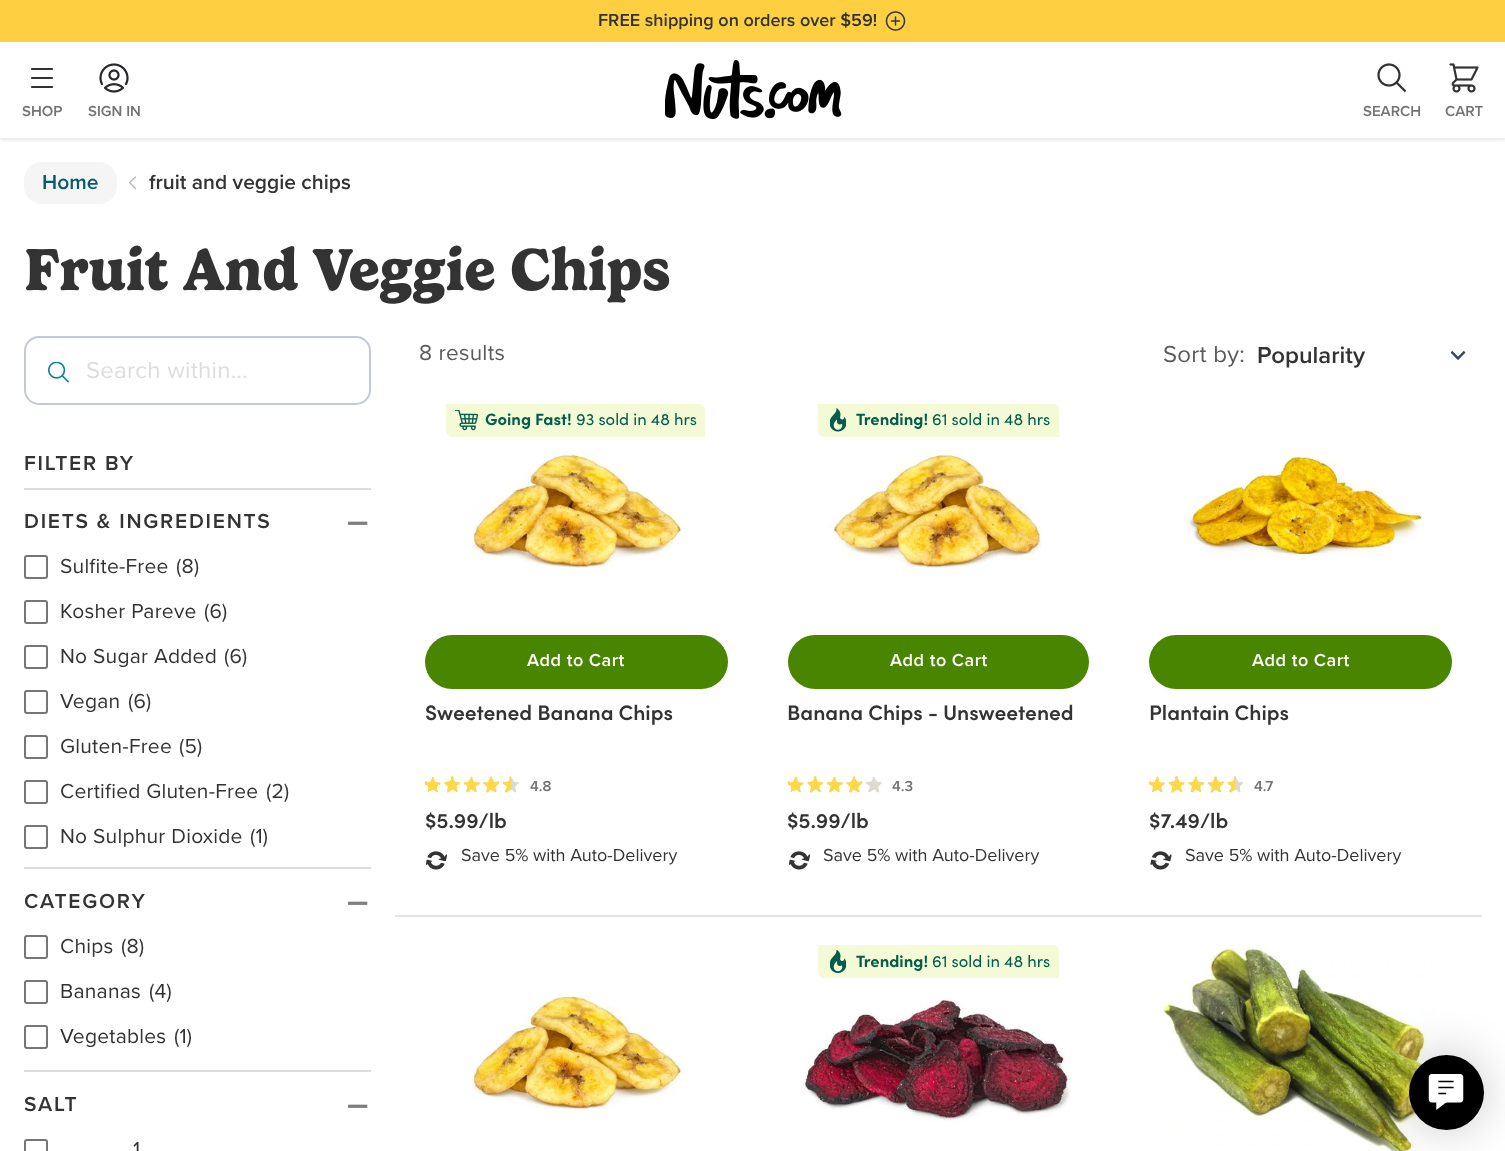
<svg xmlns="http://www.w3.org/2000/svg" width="1505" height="1151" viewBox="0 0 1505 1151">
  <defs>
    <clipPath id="clip1"><rect x="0" y="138" width="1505" height="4"/></clipPath>
  </defs>
  <rect width="100%" height="100%" fill="rgb(255,255,255)"/>
  <g clip-path="url(#clip1)">
    <rect x="0" y="2" width="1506" height="138" fill="rgba(0,0,0,0.1)" filter="blur(2px)"/>
  </g>
  <rect x="0" y="0" width="1505" height="42" fill="rgb(255,207,66)"/>
  <text x="598" y="26" font-family="Proxima Nova" font-size="18" font-weight="600" fill="rgb(51,51,51)">FREE shipping on orders over $59!</text>
  <image x="885" y="11" width="21" height="20" href="pic1.png"/>
  <path d="M32 78H52M32 87H52M32 69H52" fill="none" stroke="rgb(50,50,50)" stroke-width="2.2" stroke-linecap="round" stroke-linejoin="round"/>
  <text x="22" y="116" font-family="Proxima Nova" font-size="15" font-weight="600" fill="rgb(115,115,115)">SHOP</text>
  <image x="99" y="63" width="30" height="30" href="pic2.png"/>
  <text x="88" y="116" font-family="Proxima Nova" font-size="15" font-weight="600" fill="rgb(115,115,115)">SIGN IN</text>
  <image x="665" y="60" width="177" height="59" href="pic3.png"/>
  <image x="1377" y="63" width="30" height="30" href="pic4.png"/>
  <text x="1363" y="116" font-family="Proxima Nova" font-size="15" font-weight="600" fill="rgb(115,115,115)">SEARCH</text>
  <image x="1449" y="63" width="30" height="30" href="pic5.png"/>
  <text x="1445" y="116" font-family="Proxima Nova" font-size="15" font-weight="600" fill="rgb(115,115,115)">CART</text>
  <rect x="24" y="162" width="93" height="42" rx="18" fill="rgb(245,245,245)"/>
  <text x="42" y="189" font-family="Proxima Nova" font-size="21" font-weight="600" fill="rgb(8,89,109)">Home</text>
  <path d="M135.5 188.5L129.5 182.5L135.5 177" fill="none" stroke="rgb(180,180,180)" stroke-width="1.3" stroke-linecap="round" stroke-linejoin="round"/>
  <text x="149" y="189" font-family="Proxima Nova" font-size="21" font-weight="600" fill="rgb(51,51,51)">fruit and veggie chips</text>
  <text x="24" y="290" font-family="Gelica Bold" font-size="60" font-weight="bold" fill="rgb(51,51,51)">Fruit And Veggie Chips</text>
  <rect x="25" y="337" width="345" height="67" rx="14" fill="none" stroke="rgb(196,200,216)" stroke-width="2"/>
  <image x="48" y="362" width="21" height="21" href="pic6.png"/>
  <text x="86" y="378" font-family="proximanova" font-size="24" letter-spacing="0.25" fill="rgb(221,221,221)">Search within...</text>
  <rect x="24" y="488" width="347" height="2" fill="rgb(221,221,221)"/>
  <text x="24" y="470" font-family="Proxima Nova" font-size="21" font-weight="600" letter-spacing="1.75" fill="rgb(51,51,51)">FILTER BY</text>
  <rect x="24" y="867" width="347" height="2" fill="rgb(221,221,221)"/>
  <text x="24" y="528" font-family="Proxima Nova" font-size="21" font-weight="600" letter-spacing="1.75" fill="rgb(51,51,51)">DIETS &amp; INGREDIENTS</text>
  <text x="347" y="532" font-family="Proxima Nova" font-size="36" font-weight="600" fill="rgb(126,126,126)">–</text>
  <rect x="25" y="556" width="22" height="22" rx="2" fill="none" stroke="rgb(118,118,118)" stroke-width="2"/>
  <g font-family="proximanova" font-size="21" letter-spacing="0.25" fill="rgb(51,51,51)">
    <text x="60" y="573">Sulfite-Free</text>
    <text x="176" y="573">(8)</text>
  </g>
  <rect x="25" y="601" width="22" height="22" rx="2" fill="none" stroke="rgb(118,118,118)" stroke-width="2"/>
  <g font-family="proximanova" font-size="21" letter-spacing="0.25" fill="rgb(51,51,51)">
    <text x="60" y="618">Kosher Pareve</text>
    <text x="204" y="618">(6)</text>
  </g>
  <rect x="25" y="646" width="22" height="22" rx="2" fill="none" stroke="rgb(118,118,118)" stroke-width="2"/>
  <g font-family="proximanova" font-size="21" letter-spacing="0.25" fill="rgb(51,51,51)">
    <text x="60" y="663">No Sugar Added</text>
    <text x="224" y="663">(6)</text>
  </g>
  <rect x="25" y="691" width="22" height="22" rx="2" fill="none" stroke="rgb(118,118,118)" stroke-width="2"/>
  <g font-family="proximanova" font-size="21" letter-spacing="0.25" fill="rgb(51,51,51)">
    <text x="60" y="708">Vegan</text>
    <text x="128" y="708">(6)</text>
  </g>
  <rect x="25" y="736" width="22" height="22" rx="2" fill="none" stroke="rgb(118,118,118)" stroke-width="2"/>
  <g font-family="proximanova" font-size="21" letter-spacing="0.25" fill="rgb(51,51,51)">
    <text x="60" y="753">Gluten-Free</text>
    <text x="179" y="753">(5)</text>
  </g>
  <rect x="25" y="781" width="22" height="22" rx="2" fill="none" stroke="rgb(118,118,118)" stroke-width="2"/>
  <g font-family="proximanova" font-size="21" letter-spacing="0.25" fill="rgb(51,51,51)">
    <text x="60" y="798">Certified Gluten-Free</text>
    <text x="266" y="798">(2)</text>
  </g>
  <rect x="25" y="826" width="22" height="22" rx="2" fill="none" stroke="rgb(118,118,118)" stroke-width="2"/>
  <g font-family="proximanova" font-size="21" letter-spacing="0.25" fill="rgb(51,51,51)">
    <text x="60" y="843">No Sulphur Dioxide</text>
    <text x="250" y="843">(1)</text>
  </g>
  <rect x="24" y="1070" width="347" height="2" fill="rgb(221,221,221)"/>
  <text x="24" y="908" font-family="Proxima Nova" font-size="21" font-weight="600" letter-spacing="1.75" fill="rgb(51,51,51)">CATEGORY</text>
  <text x="347" y="912" font-family="Proxima Nova" font-size="36" font-weight="600" fill="rgb(126,126,126)">–</text>
  <rect x="25" y="936" width="22" height="22" rx="2" fill="none" stroke="rgb(118,118,118)" stroke-width="2"/>
  <g font-family="proximanova" font-size="21" letter-spacing="0.25" fill="rgb(51,51,51)">
    <text x="60" y="953">Chips</text>
    <text x="121" y="953">(8)</text>
  </g>
  <rect x="25" y="981" width="22" height="22" rx="2" fill="none" stroke="rgb(118,118,118)" stroke-width="2"/>
  <g font-family="proximanova" font-size="21" letter-spacing="0.25" fill="rgb(51,51,51)">
    <text x="60" y="998">Bananas</text>
    <text x="149" y="998">(4)</text>
  </g>
  <rect x="25" y="1026" width="22" height="22" rx="2" fill="none" stroke="rgb(118,118,118)" stroke-width="2"/>
  <g font-family="proximanova" font-size="21" letter-spacing="0.25" fill="rgb(51,51,51)">
    <text x="60" y="1043">Vegetables</text>
    <text x="174" y="1043">(1)</text>
  </g>
  <text x="24" y="1111" font-family="Proxima Nova" font-size="21" font-weight="600" letter-spacing="1.75" fill="rgb(51,51,51)">SALT</text>
  <text x="347" y="1115" font-family="Proxima Nova" font-size="36" font-weight="600" fill="rgb(126,126,126)">–</text>
  <rect x="25" y="1140" width="22" height="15" rx="2" fill="none" stroke="rgb(118,118,118)" stroke-width="2"/>
  <text x="133" y="1156" font-family="proximanova" font-size="21" letter-spacing="0.25" fill="rgb(51,51,51)">1</text>
  <text x="419" y="360" font-family="proximanova" font-size="22.5" letter-spacing="0.25" fill="rgb(90,90,90)">8 results</text>
  <text x="1163" y="362" font-family="proximanova" font-size="24" letter-spacing="0.25" fill="rgb(90,90,90)">Sort by:</text>
  <image x="1451" y="350" width="15" height="10" href="pic7.png"/>
  <text x="1257" y="363" font-family="Proxima Nova" font-size="24" font-weight="600" fill="rgb(51,51,51)">Popularity</text>
  <rect x="395" y="915" width="1087" height="2" fill="rgb(229,229,229)"/>
  <path d="M446 404H699C702.5 404 705 406.5 705 410V437H452C448.5 437 446 434.5 446 431Z" fill="rgb(244,250,214)"/>
  <image x="455" y="410" width="24" height="21" href="pic8.png"/>
  <text x="485" y="425" font-family="sofia" font-size="16.5" font-weight="800" fill="rgb(2,93,77)">Going Fast!</text>
  <text x="576" y="425" font-family="sofia" font-size="16.5" fill="rgb(2,93,77)">93 sold in 48 hrs</text>
  <image x="472" y="449" width="213" height="119" href="pic9.png"/>
  <rect x="425" y="635" width="303" height="54" rx="27" fill="rgb(74,133,0)"/>
  <text x="527" y="666" font-family="Proxima Nova" font-size="18" font-weight="600" letter-spacing="0.5" fill="rgb(255,255,255)">Add to Cart</text>
  <text x="425" y="720" font-family="Sofia" font-size="21" font-weight="bold" fill="rgb(51,51,51)">Sweetened Banana Chips</text>
  <image x="424" y="776" width="95" height="17" href="pic10.png"/>
  <image x="424" y="776" width="88" height="17" href="pic11.png"/>
  <text x="530" y="791" font-family="Proxima Nova" font-size="15" font-weight="600" fill="rgb(115,115,115)">4.8</text>
  <text x="425" y="828" font-family="Sofia" font-size="21" font-weight="bold" fill="rgb(51,51,51)">$5.99/lb</text>
  <image x="426" y="851" width="21" height="19" href="pic12.png"/>
  <text x="461" y="861" font-family="proximanova" font-size="18" fill="rgb(51,51,51)">Save 5% with Auto-Delivery</text>
  <path d="M818 404H1053C1056.5 404 1059 406.5 1059 410V437H824C820.5 437 818 434.5 818 431Z" fill="rgb(244,250,214)"/>
  <image x="830" y="408" width="16" height="24" href="pic13.png"/>
  <text x="856" y="425" font-family="sofia" font-size="16.5" font-weight="800" fill="rgb(2,93,77)">Trending!</text>
  <text x="932" y="425" font-family="sofia" font-size="16.5" fill="rgb(2,93,77)">61 sold in 48 hrs</text>
  <image x="830" y="449" width="212" height="119" href="pic14.png"/>
  <rect x="788" y="635" width="301" height="54" rx="27" fill="rgb(74,133,0)"/>
  <text x="890" y="666" font-family="Proxima Nova" font-size="18" font-weight="600" letter-spacing="0.5" fill="rgb(255,255,255)">Add to Cart</text>
  <text x="787" y="720" font-family="Sofia" font-size="21" font-weight="bold" fill="rgb(51,51,51)">Banana Chips - Unsweetened</text>
  <image x="787" y="776" width="95" height="17" href="pic15.png"/>
  <image x="787" y="776" width="76" height="17" href="pic16.png"/>
  <text x="892" y="791" font-family="Proxima Nova" font-size="15" font-weight="600" fill="rgb(115,115,115)">4.3</text>
  <text x="787" y="828" font-family="Sofia" font-size="21" font-weight="bold" fill="rgb(51,51,51)">$5.99/lb</text>
  <image x="789" y="851" width="21" height="19" href="pic12.png"/>
  <text x="823" y="861" font-family="proximanova" font-size="18" fill="rgb(51,51,51)">Save 5% with Auto-Delivery</text>
  <image x="1185" y="447" width="243" height="109" href="pic17.png"/>
  <rect x="1149" y="635" width="303" height="54" rx="27" fill="rgb(74,133,0)"/>
  <text x="1252" y="666" font-family="Proxima Nova" font-size="18" font-weight="600" letter-spacing="0.5" fill="rgb(255,255,255)">Add to Cart</text>
  <text x="1149" y="720" font-family="Sofia" font-size="21" font-weight="bold" fill="rgb(51,51,51)">Plantain Chips</text>
  <image x="1149" y="776" width="95" height="17" href="pic18.png"/>
  <image x="1149" y="776" width="87" height="17" href="pic19.png"/>
  <text x="1254" y="791" font-family="Proxima Nova" font-size="15" font-weight="600" fill="rgb(115,115,115)">4.7</text>
  <text x="1149" y="828" font-family="Sofia" font-size="21" font-weight="bold" fill="rgb(51,51,51)">$7.49/lb</text>
  <image x="1150" y="851" width="22" height="19" href="pic20.png"/>
  <text x="1185" y="861" font-family="proximanova" font-size="18" fill="rgb(51,51,51)">Save 5% with Auto-Delivery</text>
  <path d="M818 945H1053C1056.5 945 1059 947.5 1059 951V978H824C820.5 978 818 975.5 818 972Z" fill="rgb(244,250,214)"/>
  <image x="830" y="950" width="16" height="23" href="pic21.png"/>
  <text x="856" y="967" font-family="sofia" font-size="16.5" font-weight="800" fill="rgb(2,93,77)">Trending!</text>
  <text x="932" y="967" font-family="sofia" font-size="16.5" fill="rgb(2,93,77)">61 sold in 48 hrs</text>
  <image x="804" y="999" width="267" height="122" href="pic22.png"/>
  <image x="1159" y="945" width="282" height="206" href="pic23.png"/>
  <image x="472" y="990" width="213" height="120" href="pic24.png"/>
  <rect x="1407" y="1053" width="78" height="78" rx="39" fill="rgba(0,0,0,0.2)" filter="blur(22.5px)"/>
  <circle cx="1446.5" cy="1092.5" r="37.5" fill="rgb(0,0,0)"/>
  <image x="1428" y="1074" width="36" height="36" href="pic25.png"/>
</svg>
